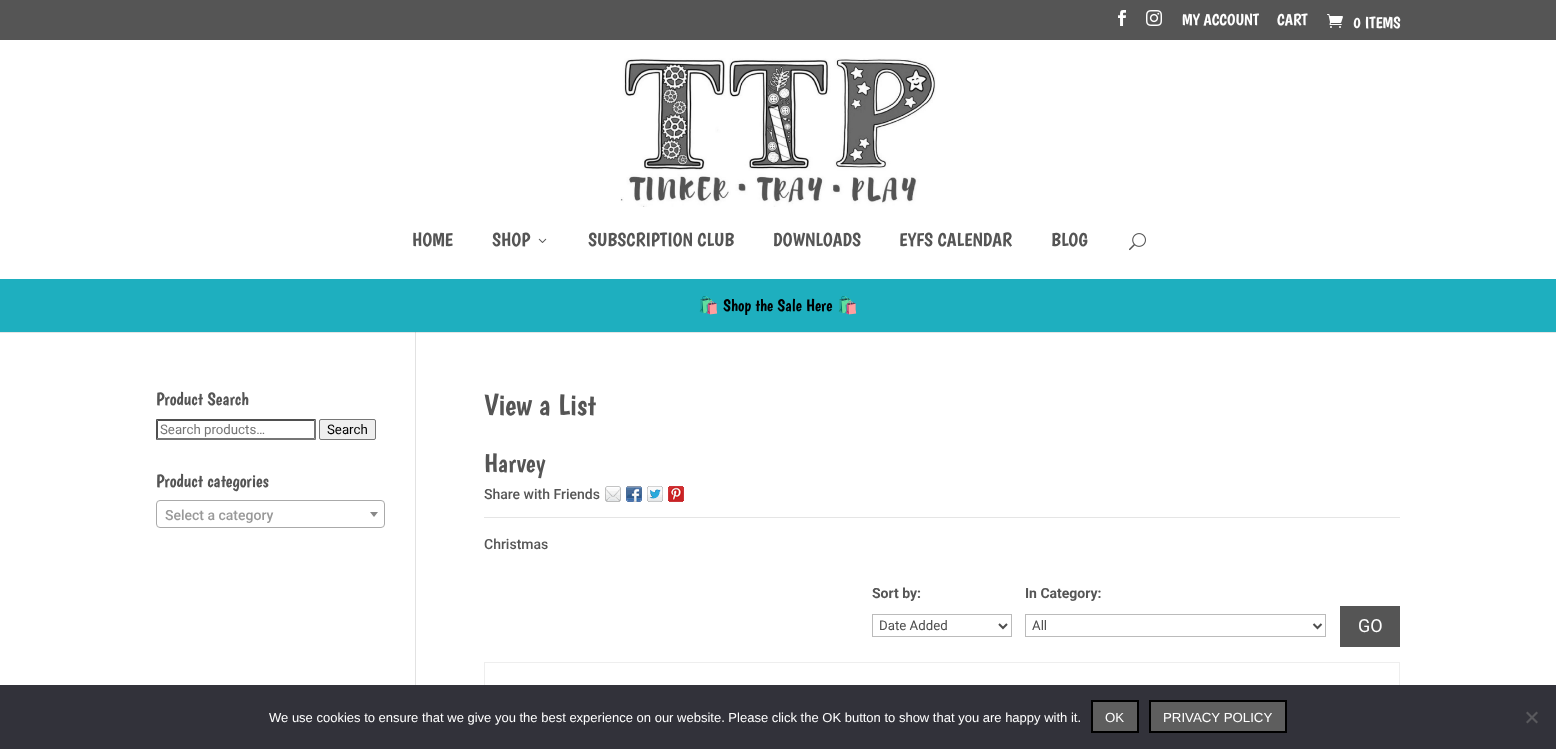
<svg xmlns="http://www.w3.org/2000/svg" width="1556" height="749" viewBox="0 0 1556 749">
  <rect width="100%" height="100%" fill="rgb(255,255,255)"/>
  <rect x="0" y="332" width="1556" height="1" fill="rgb(230,230,230)"/>
  <rect x="0" y="0" width="1556" height="40" fill="rgb(85,85,85)"/>
  <image x="1118" y="10" width="8" height="16" href="pic1.png"/>
  <image x="1146" y="10" width="16" height="16" href="pic2.png"/>
  <g font-family="Boogaloo" font-size="16" fill="rgb(255,255,255)">
    <text x="1182" y="25">MY ACCOUNT</text>
    <text x="1277" y="25">CART</text>
  </g>
  <image x="1327" y="14" width="16" height="14" href="pic3.png"/>
  <text x="1353" y="28" font-family="Boogaloo" font-size="16" fill="rgb(255,255,255)">0 ITEMS</text>
  <image x="620" y="58" width="316" height="149" href="pic4.png"/>
  <g font-family="Boogaloo" font-size="19" fill="rgb(85,85,85)">
    <text x="412" y="246">HOME</text>
    <text x="492" y="246">SHOP</text>
  </g>
  <image x="538" y="238" width="9" height="5" href="pic5.png"/>
  <g font-family="Boogaloo" font-size="19" fill="rgb(85,85,85)">
    <text x="588" y="246">SUBSCRIPTION CLUB</text>
    <text x="773" y="246">DOWNLOADS</text>
    <text x="899" y="246">EYFS CALENDAR</text>
    <text x="1051" y="246">BLOG</text>
  </g>
  <image x="1129" y="233" width="17" height="18" href="pic6.png"/>
  <rect x="0" y="279" width="1556" height="53" fill="rgb(30,175,191)"/>
  <text x="698" y="311" font-family="Noto Color Emoji" font-size="16.75" fill="rgb(0,0,0)">🛍️</text>
  <text x="723" y="311" font-family="Boogaloo" font-size="16.75" fill="rgb(0,0,0)">Shop the Sale Here</text>
  <text x="837" y="311" font-family="Noto Color Emoji" font-size="16.75" fill="rgb(0,0,0)">🛍️</text>
  <rect x="415" y="332" width="1" height="353" fill="rgb(226,226,226)"/>
  <rect x="415" y="332" width="1" height="1" fill="rgb(203,203,203)"/>
  <text x="156" y="405" font-family="Boogaloo" font-size="18" fill="rgb(85,85,85)">Product Search</text>
  <path d="M156 419H316L314 421H158Z" fill="rgb(79,79,79)"/>
  <path d="M316 419V440L314 438V421Z" fill="rgb(118,118,118)"/>
  <path d="M316 440H156L158 438H314Z" fill="rgb(118,118,118)"/>
  <path d="M156 440V419L158 421V438Z" fill="rgb(79,79,79)"/>
  <text x="160" y="434" font-family="Roboto" font-size="13.25" fill="rgb(117,117,117)">Search products…</text>
  <rect x="319.5" y="419.5" width="56" height="20" rx="1.5" fill="rgb(239,239,239)" stroke="rgb(118,118,118)"/>
  <text x="327" y="434" font-family="Roboto" font-size="13.25" fill="rgb(0,0,0)">Search</text>
  <text x="156" y="487" font-family="Boogaloo" font-size="18" fill="rgb(85,85,85)">Product categories</text>
  <rect x="156.5" y="500.5" width="228" height="27" rx="3.5" fill="none" stroke="rgb(170,170,170)"/>
  <text x="165" y="520" font-family="Roboto" font-size="14" font-weight="500" fill="rgb(153,153,153)">Select a category</text>
  <path d="M370 512H378L374 517Z" fill="rgb(136,136,136)"/>
  <text x="484" y="415" font-family="Boogaloo" font-size="30" fill="rgb(85,85,85)">View a List</text>
  <text x="484" y="472" font-family="Boogaloo" font-size="26" fill="rgb(85,85,85)">Harvey</text>
  <rect x="484" y="517" width="916" height="1" fill="rgb(229,229,229)"/>
  <text x="484" y="499" font-family="Roboto" font-size="14" font-weight="500" fill="rgb(85,85,85)">Share with Friends</text>
  <image x="605" y="486" width="16" height="16" href="pic7.png"/>
  <image x="626" y="486" width="16" height="16" href="pic8.png"/>
  <image x="647" y="486" width="16" height="16" href="pic9.png"/>
  <image x="668" y="486" width="16" height="16" href="pic10.png"/>
  <text x="484" y="549" font-family="Roboto" font-size="14" font-weight="500" fill="rgb(85,85,85)">Christmas</text>
  <g font-family="Roboto" font-size="14" font-weight="bold" fill="rgb(85,85,85)">
    <text x="872" y="598">Sort by:</text>
    <text x="1025" y="598">In Category:</text>
  </g>
  <rect x="872.5" y="614.5" width="139" height="22" fill="none" stroke="rgb(187,187,187)"/>
  <path d="M999 624L1003 628L1007 624" fill="none" stroke="rgb(78,78,78)" stroke-width="2"/>
  <text x="879" y="630" font-family="Roboto" font-size="13.25" fill="rgb(78,78,78)">Date Added</text>
  <rect x="1025.5" y="614.5" width="300" height="22" fill="none" stroke="rgb(187,187,187)"/>
  <path d="M1313.5 624L1317.5 628L1321.5 624" fill="none" stroke="rgb(78,78,78)" stroke-width="2"/>
  <text x="1032" y="630" font-family="Roboto" font-size="13.25" fill="rgb(78,78,78)">All</text>
  <rect x="1340" y="606" width="60" height="41" fill="rgb(85,85,85)"/>
  <text x="1358" y="632" font-family="Roboto" font-size="18" fill="rgb(255,255,255)">GO</text>
  <rect x="484" y="662" width="916" height="1" fill="rgb(238,238,238)"/>
  <rect x="1399" y="662" width="1" height="23" fill="rgb(238,238,238)"/>
  <rect x="484" y="662" width="1" height="23" fill="rgb(238,238,238)"/>
  <rect x="0" y="685" width="1556" height="64" fill="rgb(50,50,58)"/>
  <text x="269" y="722" font-family="Liberation Sans" font-size="13" fill="rgb(255,255,255)">We use cookies to ensure that we give you the best experience on our website. Please click the OK button to show that you are happy with it.</text>
  <rect x="1092" y="701" width="46" height="31" fill="rgb(94,94,94)" stroke="rgb(0,0,0)" stroke-width="2"/>
  <text x="1105" y="722" font-family="Liberation Sans" font-size="13.25" fill="rgb(255,255,255)">OK</text>
  <rect x="1150" y="701" width="136" height="31" fill="rgb(94,94,94)" stroke="rgb(0,0,0)" stroke-width="2"/>
  <text x="1163" y="722" font-family="Liberation Sans" font-size="13.25" fill="rgb(255,255,255)">PRIVACY POLICY</text>
  <path d="M1536.5 711.5L1538 713L1527.5 723.5L1526 722Z" fill="rgb(89,89,93)"/>
  <path d="M1526 713L1527.5 711.5L1538 722L1536.5 723.5Z" fill="rgb(89,89,93)"/>
</svg>
